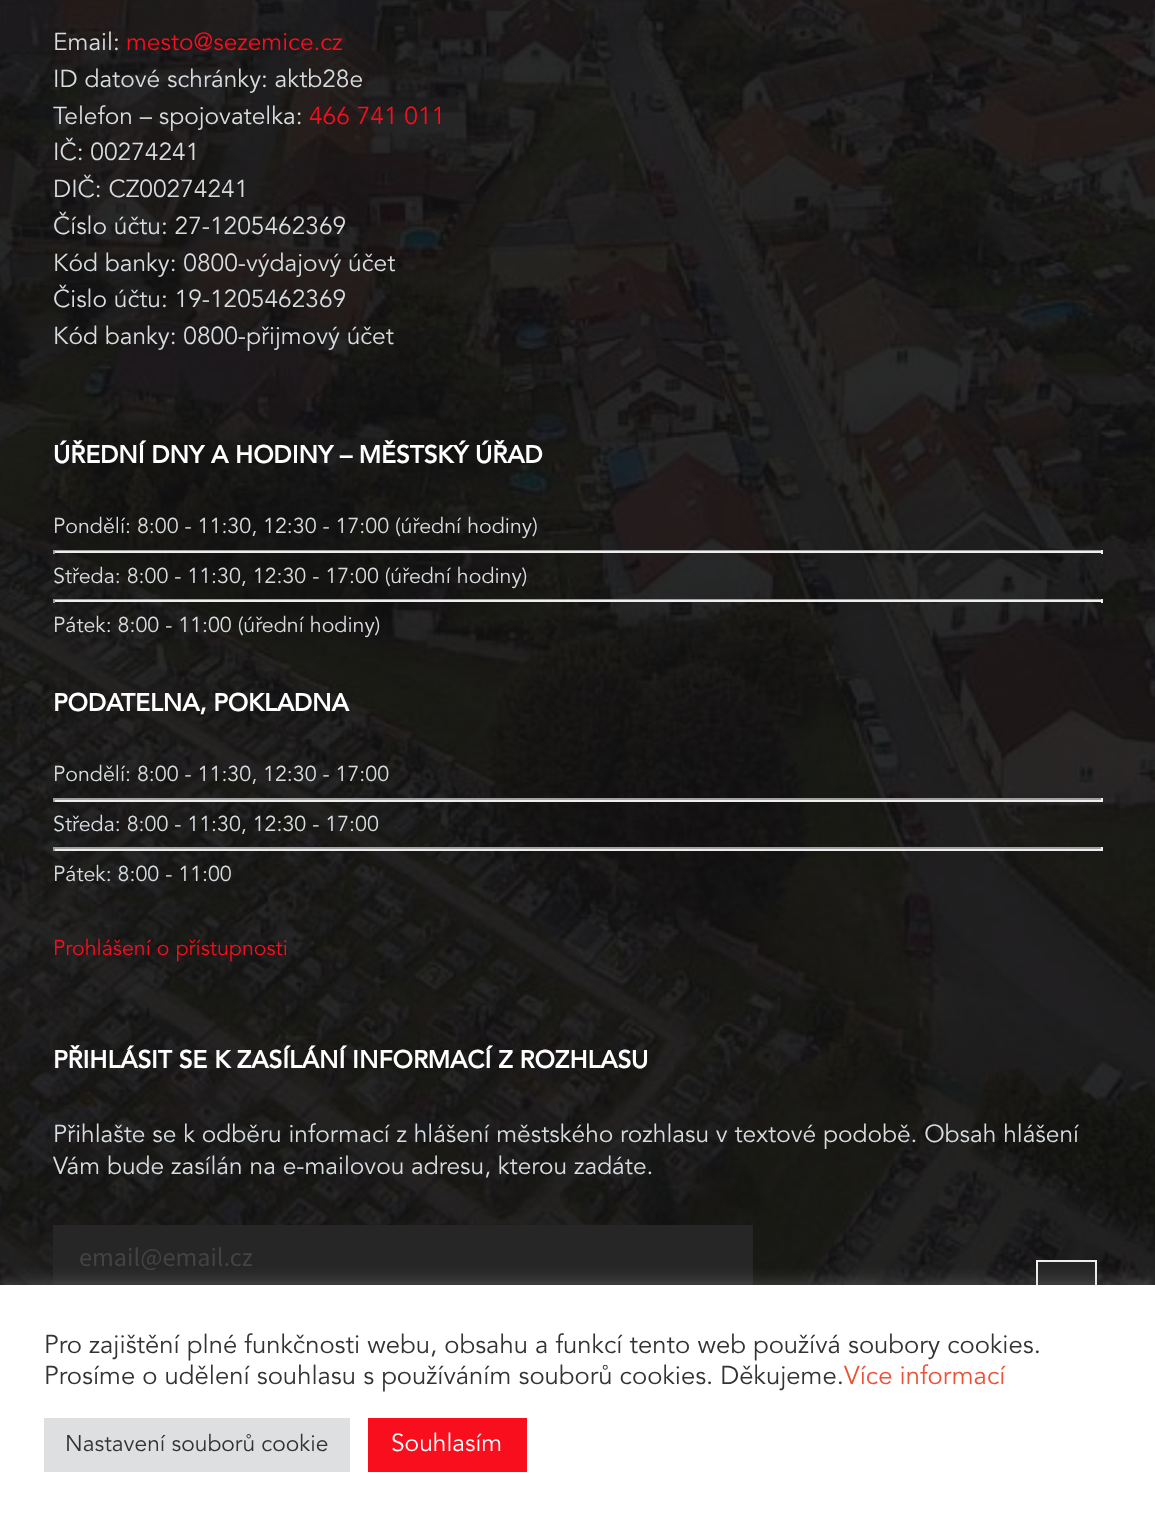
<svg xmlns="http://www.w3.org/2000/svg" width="1155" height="1524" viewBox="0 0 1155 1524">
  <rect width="100%" height="100%" fill="rgb(255,255,255)"/>
  <image x="0" y="0" width="1155" height="1285" href="pic1.png"/>
  <text x="53" y="50" font-family="Avenir" font-size="24.5" fill="rgb(215,220,223)">Email:</text>
  <text x="126" y="50" font-family="Avenir" font-size="24.5" fill="rgb(249,14,29)">mesto@sezemice.cz</text>
  <g font-family="Avenir" font-size="24.5" fill="rgb(215,220,223)">
    <text>
      <tspan x="53" y="87">ID datové schránky: aktb28e</tspan>
      <tspan x="53" y="124">Telefon – spojovatelka:</tspan>
    </text>
  </g>
  <text x="309" y="124" font-family="Avenir" font-size="24.5" fill="rgb(249,14,29)">466 741 011</text>
  <g font-family="Avenir" font-size="24.5" fill="rgb(215,220,223)">
    <text>
      <tspan x="53" y="160">IČ: 00274241</tspan>
      <tspan x="53" y="197">DIČ: CZ00274241</tspan>
      <tspan x="53" y="234">Číslo účtu: 27-1205462369</tspan>
      <tspan x="53" y="271">Kód banky: 0800-výdajový účet</tspan>
      <tspan x="53" y="307">Čislo účtu: 19-1205462369</tspan>
      <tspan x="53" y="344">Kód banky: 0800-přijmový účet</tspan>
    </text>
  </g>
  <text x="53" y="463" font-family="Avenir" font-size="24.5" font-weight="bold" fill="rgb(255,255,255)">ÚŘEDNÍ DNY A HODINY – MĚSTSKÝ ÚŘAD</text>
  <text x="53" y="533" font-family="Avenir" font-size="21.4" fill="rgb(215,220,223)">Pondělí: 8:00 - 11:30, 12:30 - 17:00 (úřední hodiny)</text>
  <rect x="53" y="550" width="1050" height="1" fill="rgb(159,159,159)"/>
  <rect x="1101" y="550" width="2" height="4" fill="rgb(238,238,238)"/>
  <rect x="53" y="551" width="1050" height="2" fill="rgb(238,238,238)"/>
  <rect x="53" y="550" width="2" height="4" fill="rgb(159,159,159)"/>
  <text x="53" y="583" font-family="Avenir" font-size="21.4" fill="rgb(215,220,223)">Středa: 8:00 - 11:30, 12:30 - 17:00 (úřední hodiny)</text>
  <rect x="53" y="599" width="1050" height="1" fill="rgb(159,159,159)"/>
  <rect x="1101" y="599" width="2" height="4" fill="rgb(238,238,238)"/>
  <rect x="53" y="600" width="1050" height="2" fill="rgb(238,238,238)"/>
  <rect x="53" y="599" width="2" height="4" fill="rgb(159,159,159)"/>
  <text x="53" y="632" font-family="Avenir" font-size="21.4" fill="rgb(215,220,223)">Pátek: 8:00 - 11:00 (úřední hodiny)</text>
  <text x="53" y="711" font-family="Avenir" font-size="24.5" font-weight="bold" fill="rgb(255,255,255)">PODATELNA, POKLADNA</text>
  <text x="53" y="781" font-family="Avenir" font-size="21.4" fill="rgb(215,220,223)">Pondělí: 8:00 - 11:30, 12:30 - 17:00</text>
  <rect x="53" y="798" width="1050" height="2" fill="rgb(159,159,159)"/>
  <rect x="1101" y="798" width="2" height="4" fill="rgb(238,238,238)"/>
  <rect x="53" y="800" width="1050" height="2" fill="rgb(238,238,238)"/>
  <rect x="53" y="798" width="2" height="4" fill="rgb(159,159,159)"/>
  <text x="53" y="831" font-family="Avenir" font-size="21.4" fill="rgb(215,220,223)">Středa: 8:00 - 11:30, 12:30 - 17:00</text>
  <rect x="53" y="847" width="1050" height="2" fill="rgb(159,159,159)"/>
  <rect x="1101" y="847" width="2" height="4" fill="rgb(238,238,238)"/>
  <rect x="53" y="849" width="1050" height="2" fill="rgb(238,238,238)"/>
  <rect x="53" y="847" width="2" height="4" fill="rgb(159,159,159)"/>
  <text x="53" y="881" font-family="Avenir" font-size="21.4" fill="rgb(215,220,223)">Pátek: 8:00 - 11:00</text>
  <text x="53" y="955" font-family="Avenir" font-size="21.4" fill="rgb(249,14,29)">Prohlášení o přístupnosti</text>
  <text x="53" y="1068" font-family="Avenir" font-size="24.5" font-weight="bold" fill="rgb(255,255,255)">PŘIHLÁSIT SE K ZASÍLÁNÍ INFORMACÍ Z ROZHLASU</text>
  <g font-family="Avenir" font-size="24.5" fill="rgb(215,220,223)">
    <text>
      <tspan x="53" y="1142">Přihlašte se k odběru informací z hlášení městského rozhlasu v textové podobě. Obsah hlášení</tspan>
      <tspan x="53" y="1174">Vám bude zasílán na e-mailovou adresu, kterou zadáte.</tspan>
    </text>
  </g>
  <rect x="53" y="1225" width="700" height="60" fill="rgb(38,38,38)"/>
  <text x="79" y="1266" font-family="Source Sans Pro" font-size="26.25" fill="rgb(67,67,67)">email@email.cz</text>
  <rect x="1038" y="1262" width="57" height="23" fill="rgb(38,38,38)"/>
  <rect x="1037" y="1261" width="59" height="52" fill="none" stroke="rgb(239,239,239)" stroke-width="2"/>
  <rect x="0" y="1283" width="1155" height="240" fill="rgba(172,171,171,0.3)" filter="blur(9px)"/>
  <rect x="0" y="1285" width="1155" height="239" fill="rgb(255,255,255)"/>
  <g font-family="Avenir" font-size="25.65" fill="rgb(51,51,51)">
    <text>
      <tspan x="44" y="1353">Pro zajištění plné funkčnosti webu, obsahu a funkcí tento web používá soubory cookies.</tspan>
      <tspan x="44" y="1384">Prosíme o udělení souhlasu s používáním souborů cookies. Děkujeme.</tspan>
    </text>
  </g>
  <text x="844" y="1384" font-family="Avenir" font-size="25.65" fill="rgb(236,82,55)">Více informací</text>
  <rect x="44" y="1418" width="306" height="54" fill="rgb(222,223,224)"/>
  <text x="65" y="1451" font-family="Avenir" font-size="22.75" fill="rgb(51,51,51)">Nastavení souborů cookie</text>
  <rect x="368" y="1418" width="159" height="54" fill="rgb(249,14,29)"/>
  <text x="391" y="1451" font-family="Avenir" font-size="24.5" fill="rgb(255,255,255)">Souhlasím</text>
</svg>
